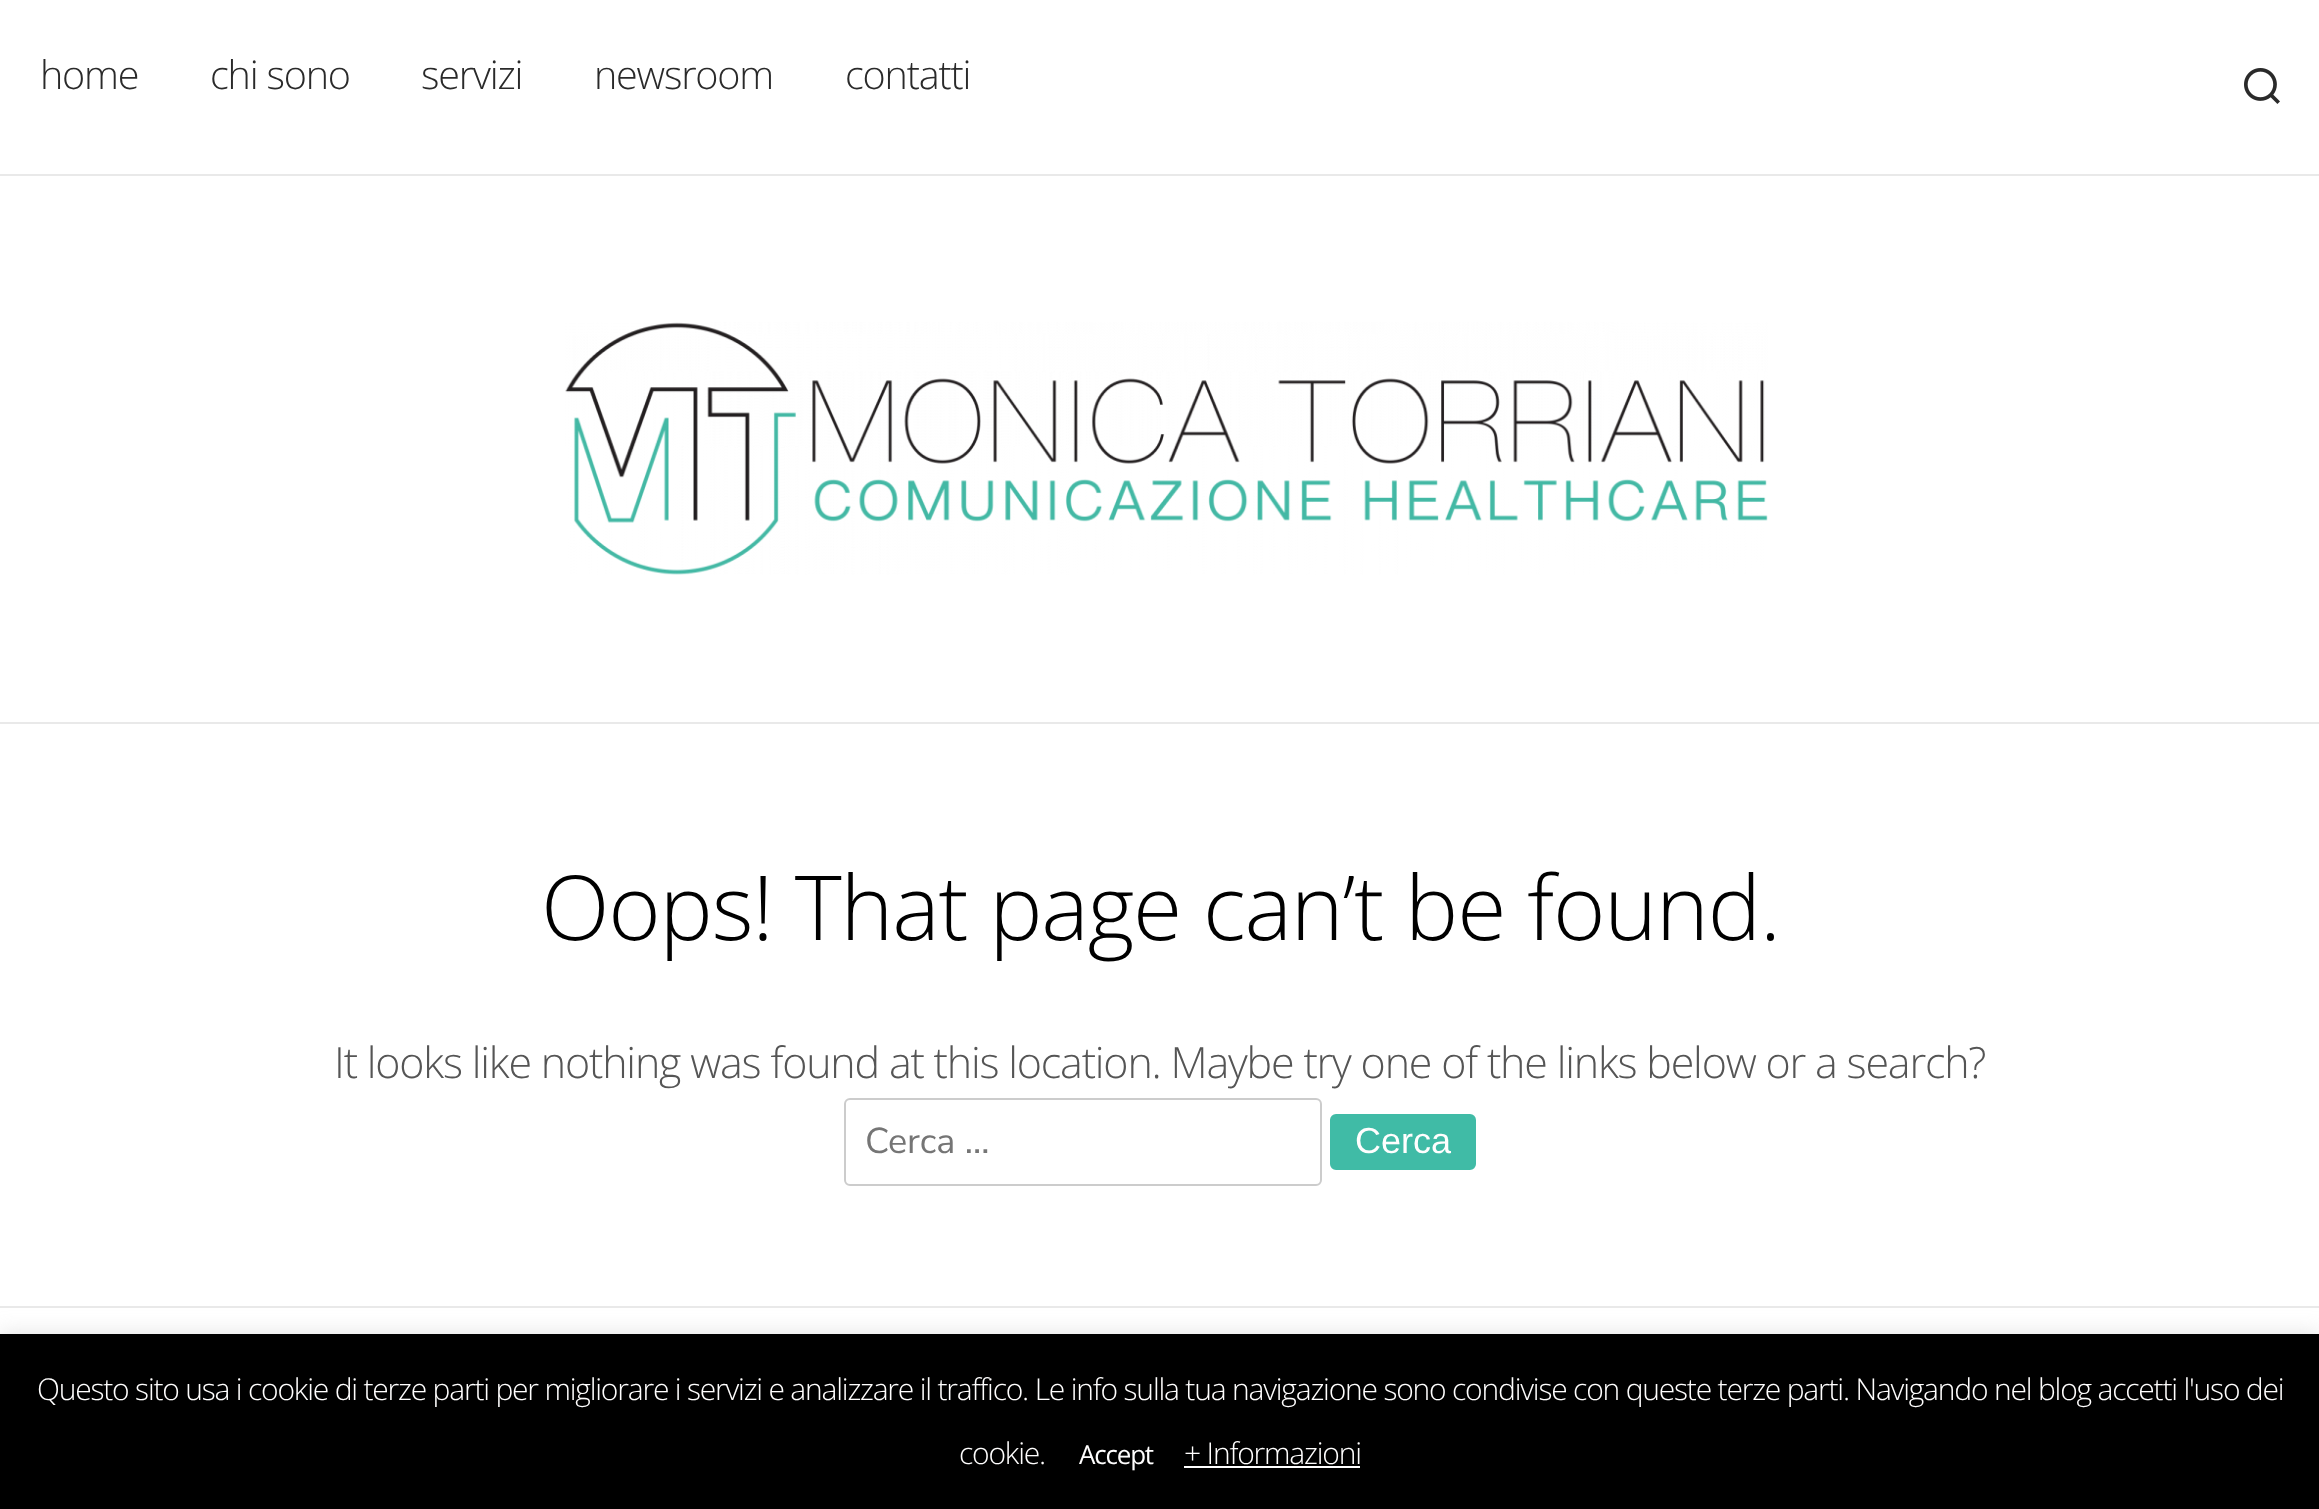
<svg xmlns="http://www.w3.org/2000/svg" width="2319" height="1509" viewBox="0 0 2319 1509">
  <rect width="100%" height="100%" fill="rgb(255,255,255)"/>
  <rect x="0" y="174" width="2319" height="2" fill="rgb(233,233,233)"/>
  <g font-family="Open Sans" font-size="39.5" font-weight="300" letter-spacing="-1.2" fill="rgb(42,42,42)">
    <text x="40" y="89">home</text>
    <text x="210" y="89">chi sono</text>
    <text x="421" y="89">servizi</text>
    <text x="594" y="89">newsroom</text>
    <text x="845" y="89">contatti</text>
  </g>
  <image x="2244" y="68" width="36" height="36" href="pic1.png"/>
  <image x="565" y="322" width="1203" height="253" href="pic2.png"/>
  <rect x="0" y="722" width="2319" height="2" fill="rgb(233,233,233)"/>
  <rect x="0" y="1306" width="2319" height="2" fill="rgb(233,233,233)"/>
  <text x="541" y="940" font-family="Open Sans" font-size="89.6" font-weight="300" letter-spacing="-1.2" fill="rgb(0,0,0)">Oops! That page can’t be found.</text>
  <text x="334" y="1078" font-family="Open Sans" font-size="43" font-weight="300" letter-spacing="-1.2" fill="rgb(85,85,85)">It looks like nothing was found at this location. Maybe try one of the links below or a search?</text>
  <rect x="845" y="1099" width="476" height="86" rx="5" fill="none" stroke="rgb(204,204,204)" stroke-width="2"/>
  <text x="865" y="1153" font-family="Nunito Sans" font-size="36" fill="rgb(117,117,117)">Cerca …</text>
  <rect x="1331" y="1115" width="144" height="54" rx="5" fill="rgb(64,187,166)" stroke="rgb(64,187,166)" stroke-width="2"/>
  <text x="1355" y="1153" font-family="Liberation Sans" font-size="36" fill="rgb(255,254,254)">Cerca</text>
  <rect x="0" y="1332" width="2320" height="176" fill="rgba(172,171,171,0.3)" filter="blur(10px)"/>
  <rect x="0" y="1334" width="2319" height="175" fill="rgb(0,0,0)"/>
  <g font-family="Open Sans" font-size="30" font-weight="300" letter-spacing="-1.2" fill="rgb(255,254,254)">
    <text x="37" y="1400">Questo sito usa i cookie di terze parti per migliorare i servizi e analizzare il traffico. Le info sulla tua navigazione sono condivise con queste terze parti. Navigando nel blog accetti l'uso dei</text>
    <text x="959" y="1464">cookie.</text>
  </g>
  <text x="1079" y="1464" font-family="Open Sans" font-size="26" letter-spacing="-1.2" fill="rgb(255,254,254)">Accept</text>
  <text x="1184" y="1464" font-family="Open Sans" font-size="30" font-weight="300" letter-spacing="-1.2" fill="rgb(255,254,254)">+ Informazioni</text>
  <rect x="1184" y="1466" width="176" height="2" fill="rgb(255,255,255)"/>
</svg>
